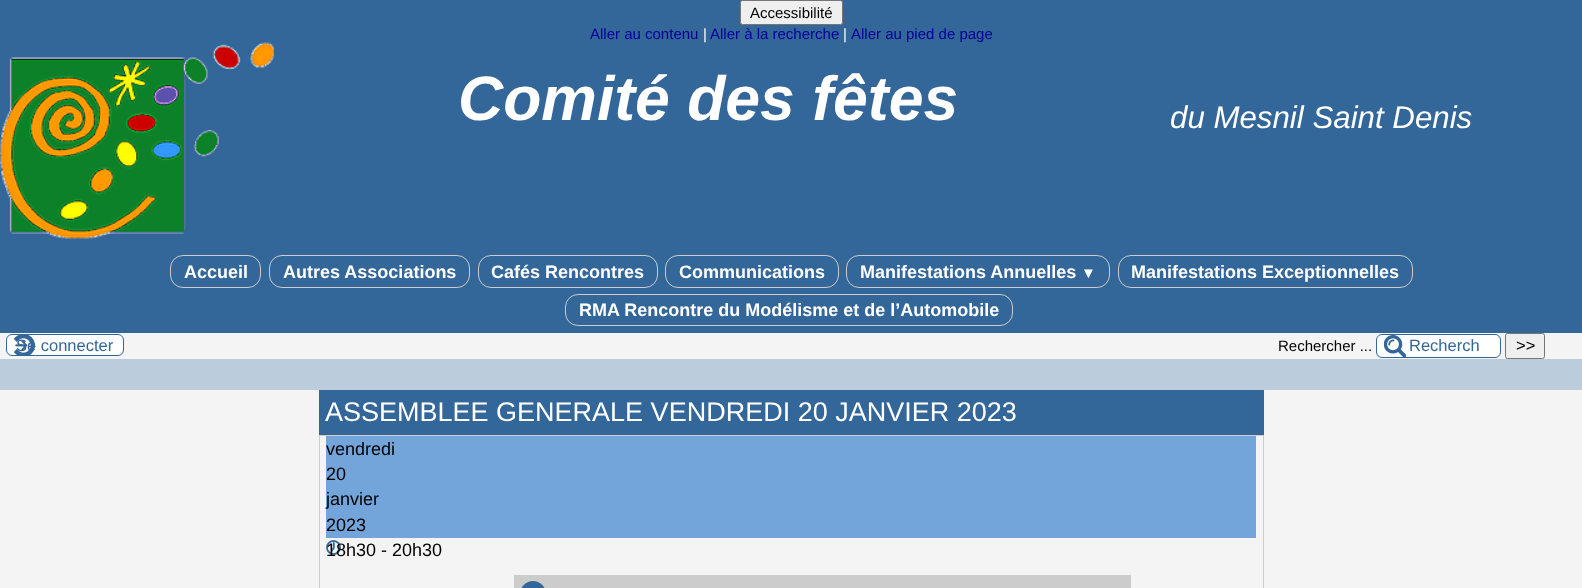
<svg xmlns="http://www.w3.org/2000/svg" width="1582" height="588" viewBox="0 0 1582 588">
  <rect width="100%" height="100%" fill="rgb(244,244,244)"/>
  <rect x="0" y="0" width="1582" height="333" fill="rgb(51,102,153)"/>
  <rect x="740.5" y="0.5" width="102" height="24" rx="2" fill="rgb(239,239,239)" stroke="rgb(118,118,118)"/>
  <text x="750" y="18" font-family="Liberation Sans" font-size="15" fill="rgb(0,0,0)">Accessibilité</text>
  <text x="590" y="39" font-family="Liberation Sans" font-size="15" fill="rgb(0,0,153)">Aller au contenu</text>
  <text x="703" y="39" font-family="Liberation Sans" font-size="15" fill="rgb(255,255,255)">|</text>
  <text x="710" y="39" font-family="Liberation Sans" font-size="15" fill="rgb(0,0,153)">Aller à la recherche</text>
  <text x="843" y="39" font-family="Liberation Sans" font-size="15" fill="rgb(255,255,255)">|</text>
  <text x="851" y="39" font-family="Liberation Sans" font-size="15" fill="rgb(0,0,153)">Aller au pied de page</text>
  <image x="0" y="42" width="274" height="197" href="pic1.png"/>
  <text x="458" y="120" font-family="Liberation Sans" font-size="62.5" font-weight="bold" font-style="italic" fill="rgb(255,255,255)">Comité des fêtes</text>
  <text x="1170" y="128" font-family="Liberation Sans" font-size="31.25" font-style="italic" fill="rgb(255,255,255)">du Mesnil Saint Denis</text>
  <rect x="170.5" y="255.5" width="90" height="32" rx="12.5" fill="none" stroke="rgb(204,204,204)"/>
  <text x="184" y="278" font-family="Liberation Sans" font-size="18" font-weight="bold" fill="rgb(255,255,255)">Accueil</text>
  <rect x="269.5" y="255.5" width="200" height="32" rx="12.5" fill="none" stroke="rgb(204,204,204)"/>
  <text x="283" y="278" font-family="Liberation Sans" font-size="18" font-weight="bold" fill="rgb(255,255,255)">Autres Associations</text>
  <rect x="478.5" y="255.5" width="179" height="32" rx="12.5" fill="none" stroke="rgb(204,204,204)"/>
  <text x="491" y="278" font-family="Liberation Sans" font-size="18" font-weight="bold" fill="rgb(255,255,255)">Cafés Rencontres</text>
  <rect x="665.5" y="255.5" width="173" height="32" rx="12.5" fill="none" stroke="rgb(204,204,204)"/>
  <text x="679" y="278" font-family="Liberation Sans" font-size="18" font-weight="bold" fill="rgb(255,255,255)">Communications</text>
  <rect x="846.5" y="255.5" width="263" height="32" rx="12.5" fill="none" stroke="rgb(204,204,204)"/>
  <text x="860" y="278" font-family="Liberation Sans" font-size="18" font-weight="bold" fill="rgb(255,255,255)">Manifestations Annuelles</text>
  <text x="1081" y="278" font-family="Liberation Sans" font-size="15" font-weight="bold" fill="rgb(255,255,255)">▼</text>
  <rect x="1118.5" y="255.5" width="294" height="32" rx="12.5" fill="none" stroke="rgb(204,204,204)"/>
  <text x="1131" y="278" font-family="Liberation Sans" font-size="18" font-weight="bold" fill="rgb(255,255,255)">Manifestations Exceptionnelles</text>
  <rect x="565.5" y="294.5" width="447" height="31" rx="12.5" fill="none" stroke="rgb(204,204,204)"/>
  <text x="579" y="316" font-family="Liberation Sans" font-size="18" font-weight="bold" fill="rgb(255,255,255)">RMA Rencontre du Modélisme et de l’Automobile</text>
  <rect x="6" y="334" width="118" height="22" rx="6" fill="rgb(255,255,255)"/>
  <image x="14" y="335" width="21" height="20" href="pic2.png"/>
  <rect x="6.5" y="334.5" width="117" height="21" rx="5.5" fill="none" stroke="rgb(51,102,153)"/>
  <text x="16" y="351" font-family="Liberation Sans" font-size="16.5" fill="rgb(51,102,153)">Se connecter</text>
  <text x="1278" y="351" font-family="Liberation Sans" font-size="15" fill="rgb(0,0,0)">Rechercher ...</text>
  <rect x="1376" y="334" width="125" height="24" rx="6" fill="rgb(255,255,255)"/>
  <image x="1384" y="335" width="22" height="22" href="pic3.png"/>
  <rect x="1376.5" y="334.5" width="124" height="23" rx="5.5" fill="none" stroke="rgb(51,102,153)"/>
  <text x="1409" y="351" font-family="Liberation Sans" font-size="16.5" fill="rgb(51,102,153)">Recherch</text>
  <rect x="1505.5" y="333.5" width="39" height="25" rx="2" fill="rgb(239,239,239)" stroke="rgb(118,118,118)"/>
  <text x="1516" y="351" font-family="Liberation Sans" font-size="16.5" fill="rgb(0,0,0)">&gt;&gt;</text>
  <rect x="0" y="359" width="1582" height="31" fill="rgb(187,204,221)"/>
  <rect x="319" y="390" width="945" height="45" fill="rgb(51,102,153)"/>
  <text x="325" y="421" font-family="Liberation Sans" font-size="27" fill="rgb(255,255,255)">ASSEMBLEE GENERALE VENDREDI 20 JANVIER 2023</text>
  <rect x="319.5" y="435.5" width="944" height="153" fill="none" stroke="rgb(204,204,204)"/>
  <rect x="326" y="436" width="930" height="102" fill="rgb(115,165,219)"/>
  <g font-family="Liberation Sans" font-size="18" fill="rgb(0,0,0)">
    <text>
      <tspan x="326" y="455">vendredi</tspan>
      <tspan x="326" y="480">20</tspan>
      <tspan x="326" y="505">janvier</tspan>
      <tspan x="326" y="531">2023</tspan>
    </text>
  </g>
  <image x="326" y="540" width="15" height="15" href="pic4.png"/>
  <text x="326" y="556" font-family="Liberation Sans" font-size="18" fill="rgb(0,0,0)">18h30 - 20h30</text>
  <rect x="514" y="575" width="617" height="13" fill="rgb(204,204,204)"/>
  <image x="521" y="581" width="24" height="7" href="pic5.png"/>
</svg>
